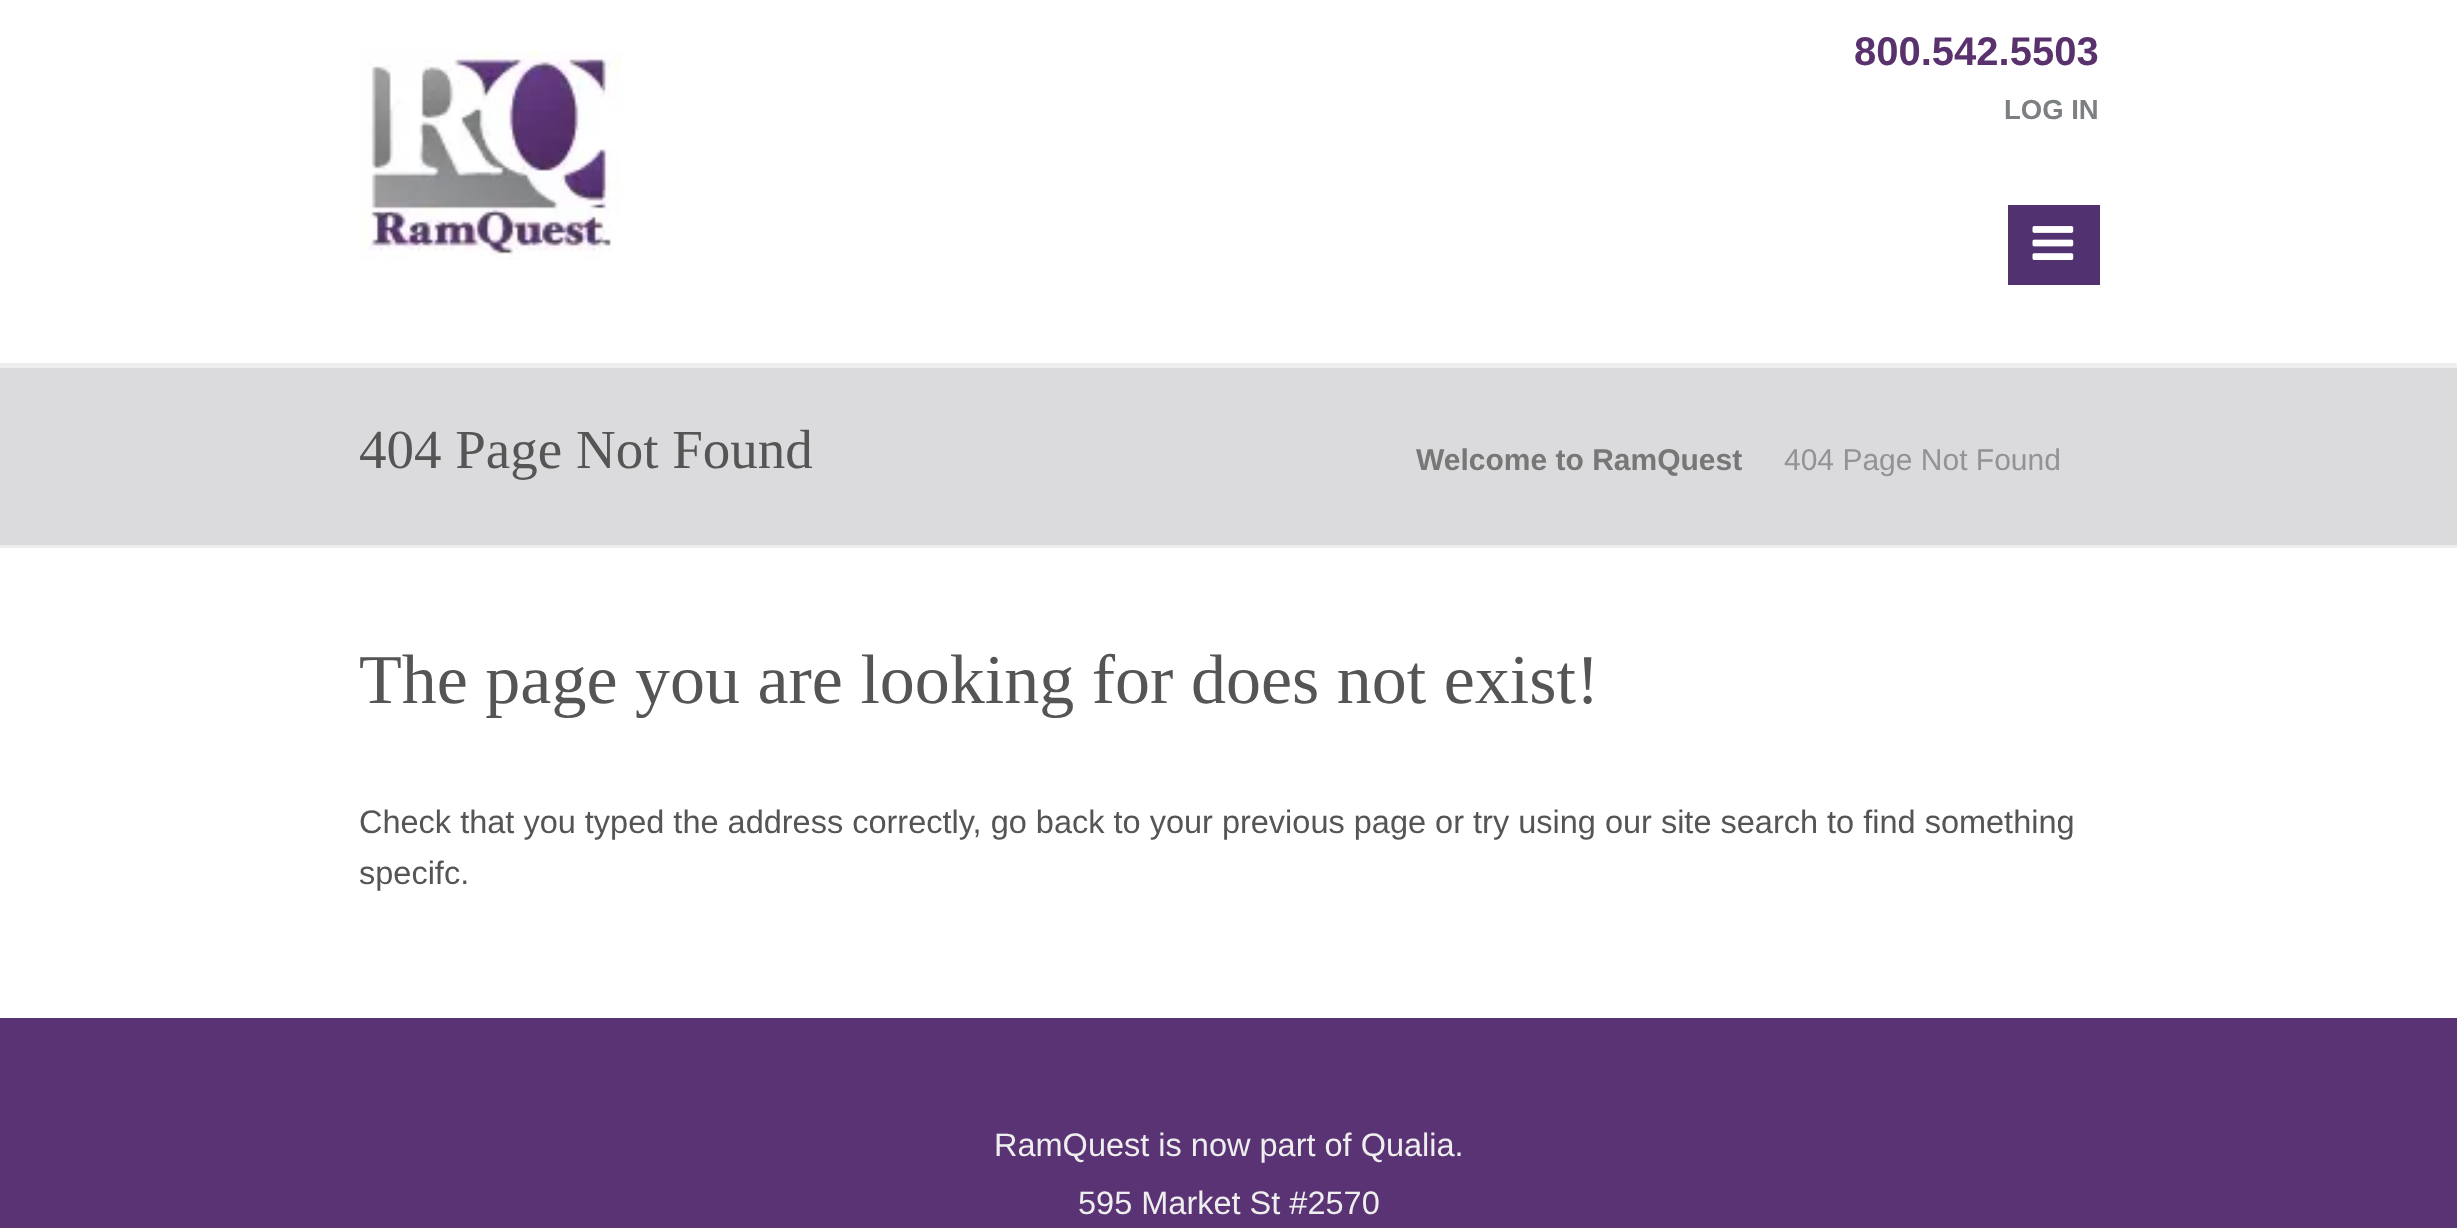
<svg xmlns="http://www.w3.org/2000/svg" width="2457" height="1228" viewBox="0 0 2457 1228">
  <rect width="100%" height="100%" fill="rgb(255,255,255)"/>
  <rect x="0" y="363" width="2457" height="5" fill="rgb(238,238,238)"/>
  <image x="360" y="50" width="262" height="210" href="pic1.png"/>
  <text x="1854" y="65" font-family="Liberation Sans" font-size="40" font-weight="bold" fill="rgb(89,50,109)">800.542.5503</text>
  <text x="2004" y="119" font-family="Liberation Sans" font-size="27.5" font-weight="bold" fill="rgb(124,128,130)">LOG IN</text>
  <rect x="2008" y="205" width="92" height="80" fill="rgb(81,49,112)"/>
  <image x="2032" y="226" width="42" height="34" href="pic2.png"/>
  <rect x="0" y="368" width="2457" height="177" fill="rgb(219,218,220)"/>
  <rect x="0" y="545" width="2457" height="3" fill="rgb(238,238,238)"/>
  <text x="359" y="468" font-family="Liberation Serif" font-size="55" fill="rgb(85,85,85)">404 Page Not Found</text>
  <text x="1416" y="470" font-family="Liberation Sans" font-size="30" font-weight="bold" fill="rgb(119,119,119)">Welcome to RamQuest</text>
  <text x="1784" y="470" font-family="Liberation Sans" font-size="30" fill="rgb(146,147,151)">404 Page Not Found</text>
  <text x="359" y="703" font-family="Liberation Serif" font-size="70" fill="rgb(85,85,85)">The page you are looking for does not exist!</text>
  <g font-family="Liberation Sans" font-size="32.5" fill="rgb(85,85,85)">
    <text>
      <tspan x="359" y="833">Check that you typed the address correctly, go back to your previous page or try using our site search to find something</tspan>
      <tspan x="359" y="884">specifc.</tspan>
    </text>
  </g>
  <rect x="0" y="1018" width="2457" height="210" fill="rgb(90,51,116)"/>
  <g font-family="Liberation Sans" font-size="32.5" fill="rgb(238,238,238)">
    <text x="994" y="1156">RamQuest is now part of Qualia.</text>
    <text x="1078" y="1214">595 Market St #2570</text>
  </g>
</svg>
